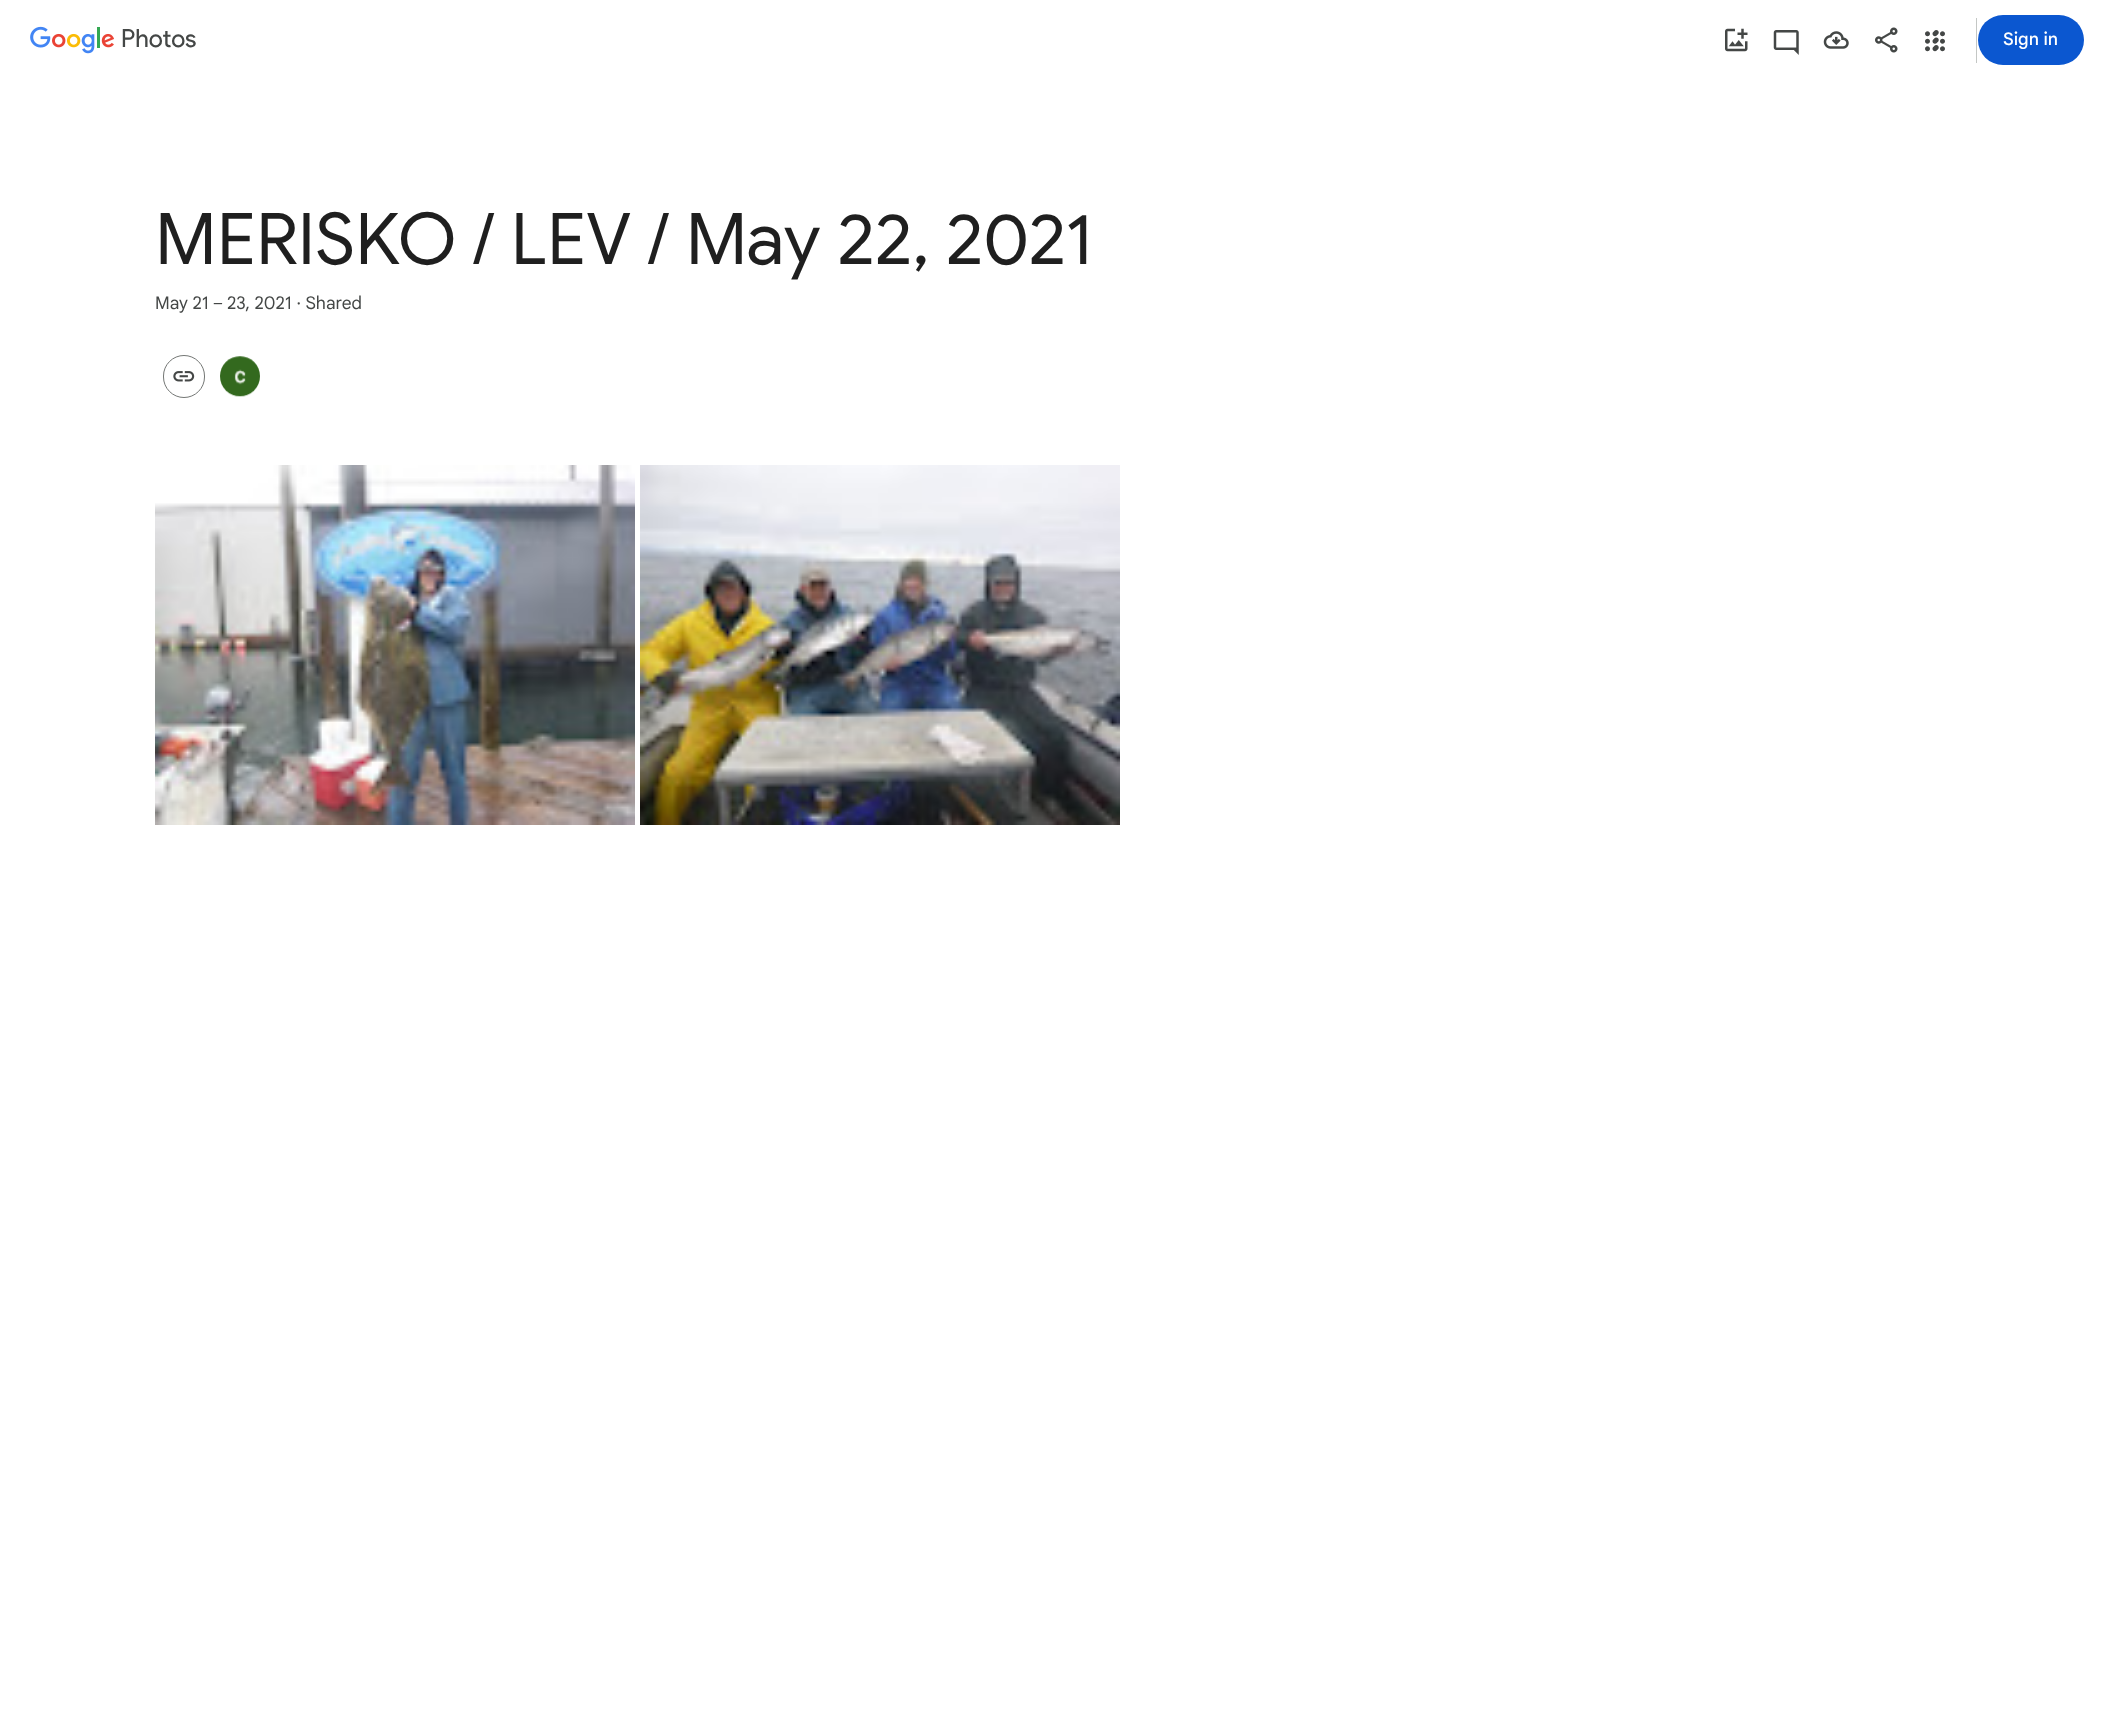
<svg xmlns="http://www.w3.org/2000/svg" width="2128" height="1730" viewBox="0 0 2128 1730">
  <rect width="100%" height="100%" fill="rgb(255,255,255)"/>
  <image x="30" y="26" width="84" height="28" href="pic1.png"/>
  <text x="121" y="47" font-family="Product Sans" font-size="25" fill="rgb(68,71,70)">Photos</text>
  <image x="1725" y="28" width="23" height="24" href="pic2.png"/>
  <image x="1773" y="30" width="26" height="25" href="pic3.png"/>
  <image x="1823" y="31" width="26" height="18" href="pic4.png"/>
  <image x="1875" y="27" width="23" height="26" href="pic5.png"/>
  <image x="1933" y="30" width="6" height="20" href="pic6.png"/>
  <rect x="1976" y="18" width="1" height="45" fill="rgb(196,199,197)"/>
  <text x="155" y="264" font-family="Google Sans" font-size="71.25" fill="rgb(31,31,31)">MERISKO / LEV / May 22, 2021</text>
  <text x="155" y="309" font-family="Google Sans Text" font-size="17.5" fill="rgb(68,71,70)">May 21 – 23, 2021 · Shared</text>
  <rect x="163.5" y="355.5" width="41" height="42" rx="20.5" fill="none" stroke="rgb(116,119,117)"/>
  <image x="173" y="371" width="22" height="11" href="pic7.png"/>
  <image x="220" y="356" width="40" height="41" href="pic8.png"/>
  <image x="155" y="465" width="480" height="360" href="pic9.png"/>
  <image x="640" y="465" width="480" height="360" href="pic10.png"/>
  <image x="1925" y="31" width="20" height="21" href="pic11.png"/>
  <rect x="1978" y="15" width="106" height="50" rx="25" fill="rgb(11,87,208)"/>
  <text x="2003" y="45" font-family="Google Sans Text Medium" font-size="17.5" font-weight="500" fill="rgb(255,255,255)">Sign in</text>
</svg>
